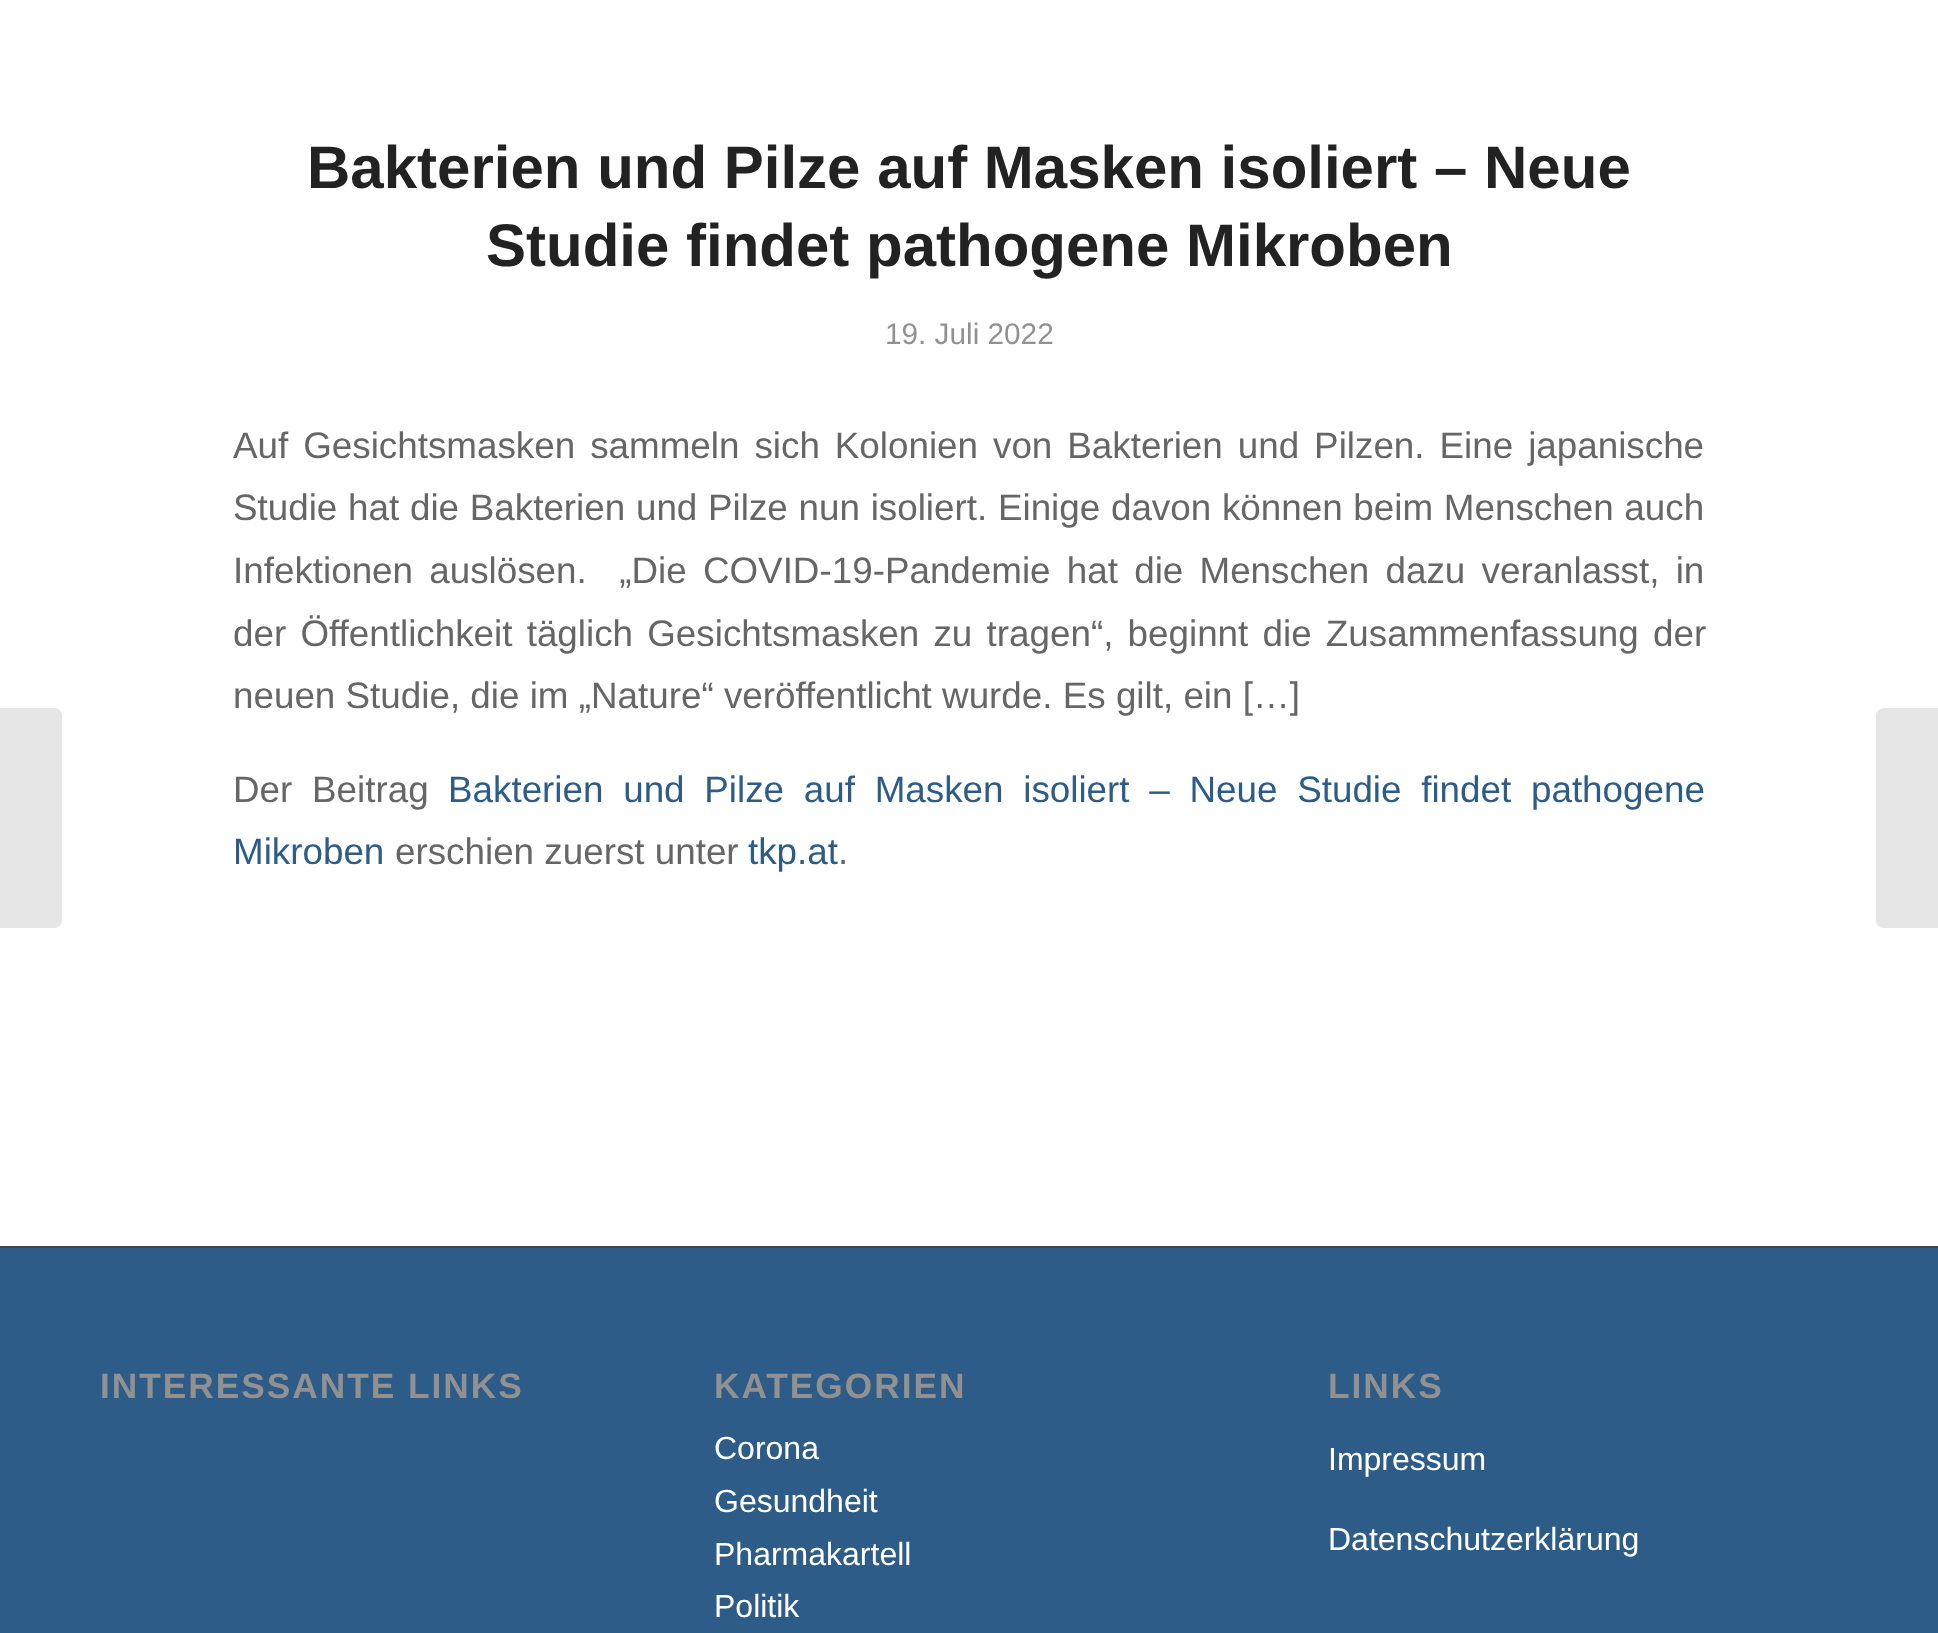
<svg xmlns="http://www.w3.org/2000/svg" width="1938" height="1633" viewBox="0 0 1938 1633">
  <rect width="100%" height="100%" fill="rgb(255,255,255)"/>
  <path d="M0 708H54C58.5 708 62 711.5 62 716V920C62 924.5 58.5 928 54 928H0Z" fill="rgb(230,230,230)"/>
  <g font-family="Liberation Sans" font-size="60" font-weight="bold" fill="rgb(34,34,34)">
    <text x="307" y="188">Bakterien und Pilze auf Masken isoliert – Neue</text>
    <text x="486" y="266">Studie findet pathogene Mikroben</text>
  </g>
  <text x="885" y="344" font-family="Liberation Sans" font-size="29.75" fill="rgb(145,145,145)">19. Juli 2022</text>
  <g font-family="Liberation Sans" font-size="36.8" fill="rgb(102,102,102)">
    <text xml:space="preserve"><tspan x="233" y="458" word-spacing="4.75">Auf Gesichtsmasken sammeln sich Kolonien von Bakterien und Pilzen. Eine japanische</tspan><tspan x="233" y="520" word-spacing="0.5">Studie hat die Bakterien und Pilze nun isoliert. Einige davon können beim Menschen auch</tspan><tspan x="233" y="583" word-spacing="6">Infektionen auslösen.  „Die COVID-19-Pandemie hat die Menschen dazu veranlasst, in</tspan><tspan x="233" y="646" word-spacing="4">der Öffentlichkeit täglich Gesichtsmasken zu tragen“, beginnt die Zusammenfassung der</tspan><tspan x="233" y="708">neuen Studie, die im „Nature“ veröffentlicht wurde. Es gilt, ein […]</tspan></text>
    <text x="233" y="802" word-spacing="9.5">Der Beitrag</text>
  </g>
  <g font-family="Liberation Sans" font-size="36.8" fill="rgb(45,92,136)">
    <text x="448" y="802" word-spacing="9.5">Bakterien und Pilze auf Masken isoliert – Neue Studie findet pathogene</text>
    <text x="233" y="864">Mikroben</text>
  </g>
  <text x="395" y="864" font-family="Liberation Sans" font-size="36.8" fill="rgb(102,102,102)">erschien zuerst unter</text>
  <text x="748" y="864" font-family="Liberation Sans" font-size="36.8" fill="rgb(45,92,136)">tkp.at</text>
  <text x="838" y="864" font-family="Liberation Sans" font-size="36.8" fill="rgb(102,102,102)">.</text>
  <rect x="0" y="1248" width="1938" height="385" fill="rgb(45,92,136)"/>
  <rect x="0" y="1246" width="1938" height="2" fill="rgb(68,68,68)"/>
  <g font-family="Liberation Sans" font-size="35.25" font-weight="bold" letter-spacing="2" fill="rgb(145,145,145)">
    <text x="100" y="1398">INTERESSANTE LINKS</text>
    <text x="714" y="1398">KATEGORIEN</text>
  </g>
  <g font-family="Liberation Sans" font-size="32" fill="rgb(255,255,255)">
    <text>
      <tspan x="714" y="1459">Corona</tspan>
      <tspan x="714" y="1512">Gesundheit</tspan>
      <tspan x="714" y="1565">Pharmakartell</tspan>
      <tspan x="714" y="1617">Politik</tspan>
    </text>
  </g>
  <text x="1328" y="1398" font-family="Liberation Sans" font-size="35.25" font-weight="bold" letter-spacing="2" fill="rgb(145,145,145)">LINKS</text>
  <g font-family="Liberation Sans" font-size="32" fill="rgb(255,255,255)">
    <text x="1328" y="1470">Impressum</text>
    <text x="1328" y="1550">Datenschutzerklärung</text>
  </g>
  <path d="M1884 708H1938V928H1884C1879.5 928 1876 924.5 1876 920V716C1876 711.5 1879.5 708 1884 708Z" fill="rgb(230,230,230)"/>
</svg>
